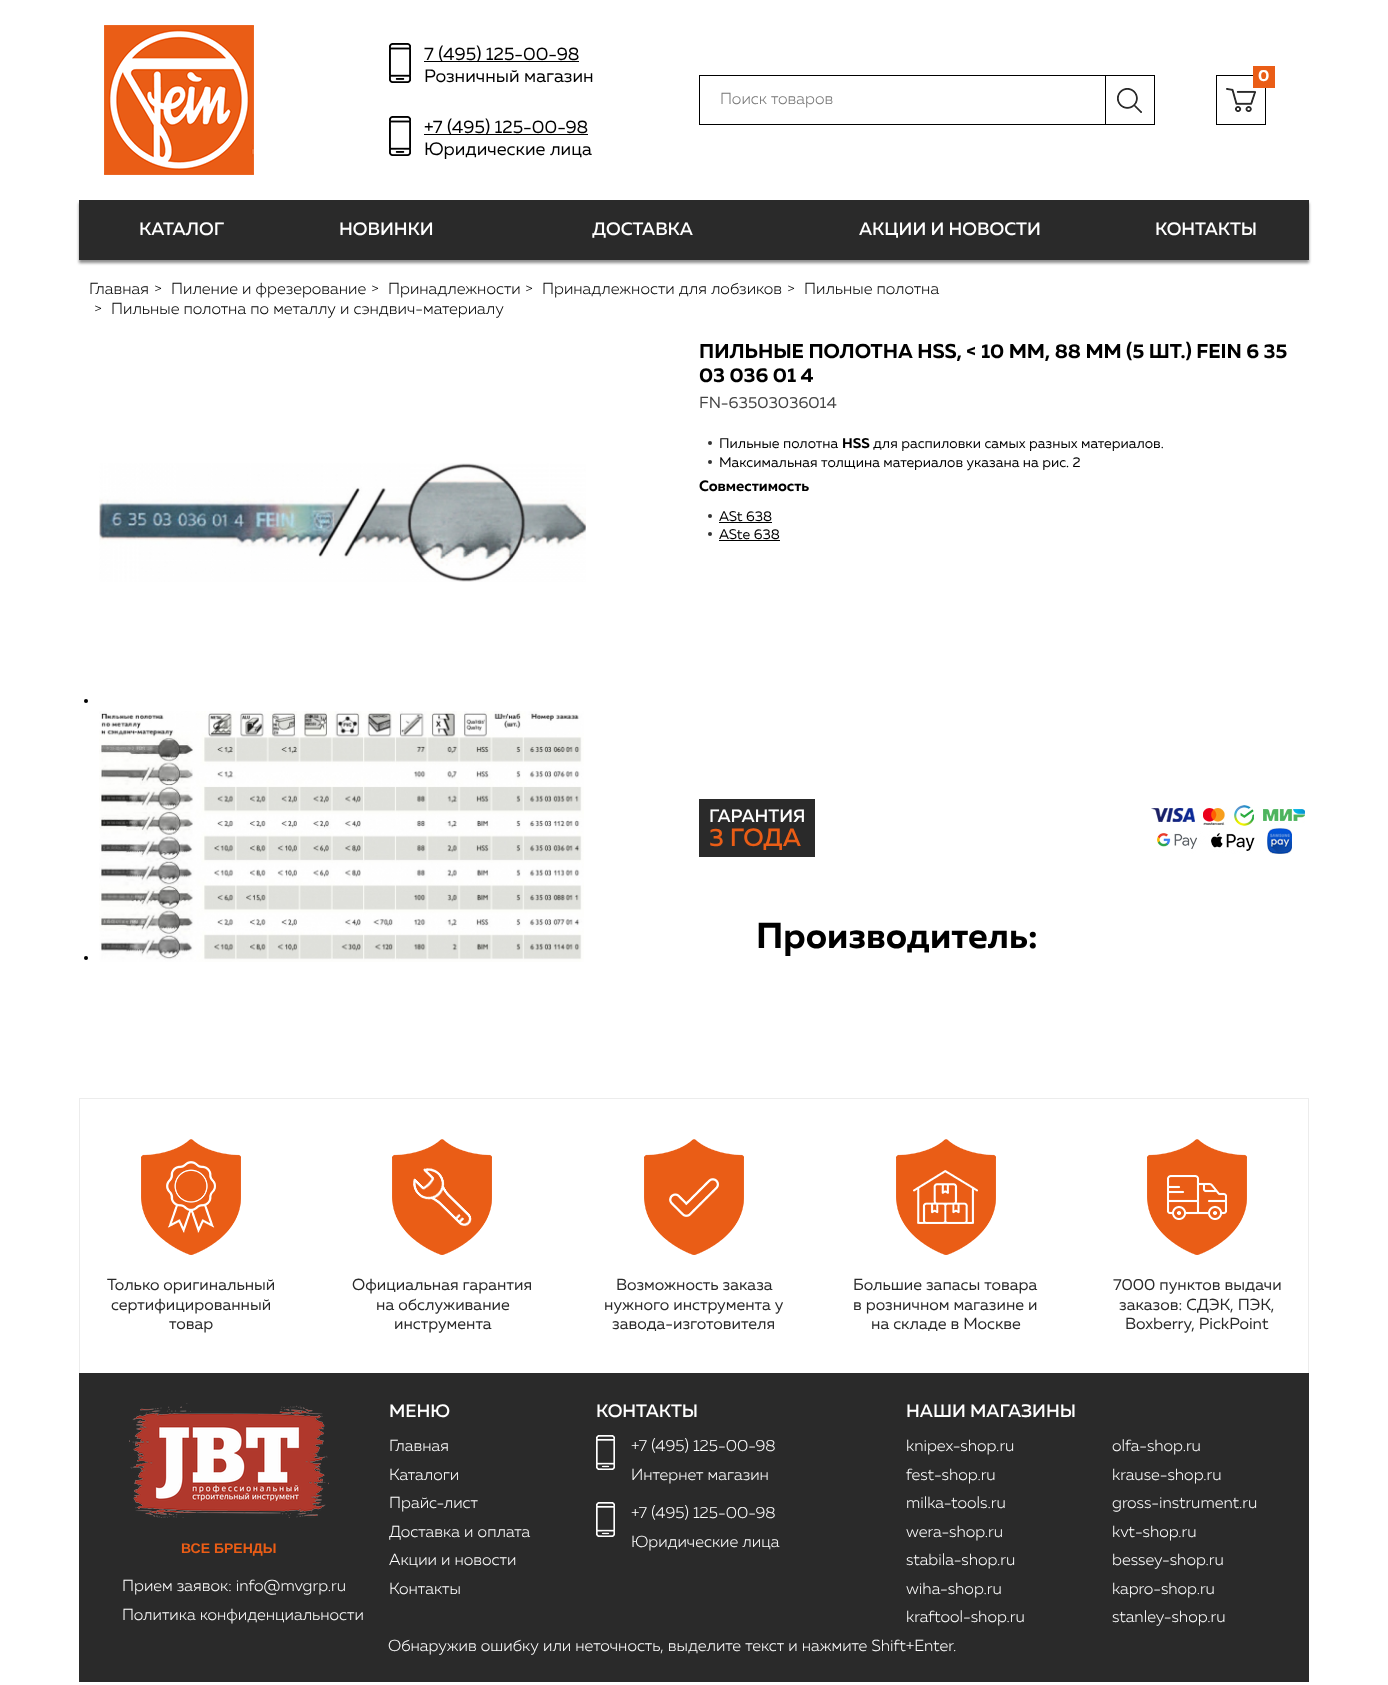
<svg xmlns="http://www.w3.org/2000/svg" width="1388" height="1685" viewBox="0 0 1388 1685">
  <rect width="100%" height="100%" fill="rgb(255,255,255)"/>
  <image x="104" y="25" width="150" height="150" href="pic1.png"/>
  <image x="389" y="43" width="22" height="40" href="pic2.png"/>
  <rect x="424" y="61" width="155" height="1" fill="rgb(0,0,0)"/>
  <g font-family="'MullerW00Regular'" font-size="18" fill="rgb(0,0,0)">
    <text>
      <tspan x="424" y="60">7 (495) 125-00-98</tspan>
      <tspan x="424" y="82">Розничный магазин</tspan>
    </text>
  </g>
  <image x="389" y="116" width="22" height="40" href="pic2.png"/>
  <rect x="424" y="134" width="164" height="1" fill="rgb(0,0,0)"/>
  <g font-family="'MullerW00Regular'" font-size="18" fill="rgb(0,0,0)">
    <text>
      <tspan x="424" y="133">+7 (495) 125-00-98</tspan>
      <tspan x="424" y="155">Юридические лица</tspan>
    </text>
  </g>
  <image x="1226" y="88" width="30" height="24" href="pic3.png"/>
  <rect x="1216.5" y="75.5" width="49" height="49" fill="none" stroke="rgb(0,0,0)"/>
  <rect x="1253" y="66" width="22" height="22" fill="rgb(234,93,22)"/>
  <text x="1258" y="81" font-family="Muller" font-size="16" font-weight="bold" fill="rgb(255,255,255)">0</text>
  <rect x="699.5" y="75.5" width="455" height="49" fill="none" stroke="rgb(0,0,0)"/>
  <text x="720" y="104" font-family="Muller" font-size="16" font-weight="300" fill="rgb(117,117,117)">Поиск товаров</text>
  <image x="1117" y="88" width="25" height="25" href="pic4.png"/>
  <rect x="1105.5" y="75.5" width="49" height="49" fill="none" stroke="rgb(0,0,0)"/>
  <rect x="79" y="203" width="1230" height="60" fill="rgba(103,103,103,0.75)" filter="blur(1.5px)"/>
  <rect x="79" y="200" width="1230" height="60" fill="rgb(42,42,42)"/>
  <g font-family="Muller" font-size="18" font-weight="500" fill="rgb(255,255,255)">
    <text x="139" y="235">КАТАЛОГ</text>
    <text x="339" y="235">НОВИНКИ</text>
    <text x="592" y="235">ДОСТАВКА</text>
    <text x="859" y="235">АКЦИИ И НОВОСТИ</text>
    <text x="1155" y="235">КОНТАКТЫ</text>
  </g>
  <g font-family="Muller" font-size="16" font-weight="300" fill="rgb(0,0,0)">
    <text x="89" y="294">Главная</text>
    <text x="154" y="294">&gt;</text>
    <text x="171" y="294">Пиление и фрезерование</text>
    <text x="371" y="294">&gt;</text>
    <text x="388" y="294">Принадлежности</text>
    <text x="525" y="294">&gt;</text>
    <text x="542" y="294">Принадлежности для лобзиков</text>
    <text x="787" y="294">&gt;</text>
    <text x="804" y="294">Пильные полотна</text>
    <text x="94" y="314">&gt;</text>
    <text x="111" y="314">Пильные полотна по металлу и сэндвич-материалу</text>
  </g>
  <image x="99" y="463" width="487" height="119" href="pic5.png"/>
  <circle cx="86" cy="701" r="2" fill="rgb(0,0,0)"/>
  <circle cx="86" cy="958" r="2" fill="rgb(0,0,0)"/>
  <image x="99" y="711" width="485" height="251" href="pic6.png"/>
  <g font-family="Muller" font-size="20" font-weight="bold" fill="rgb(0,0,0)">
    <text>
      <tspan x="699" y="358">ПИЛЬНЫЕ ПОЛОТНА HSS, &lt; 10 ММ, 88 ММ (5 ШТ.) FEIN 6 35</tspan>
      <tspan x="699" y="382">03 036 01 4</tspan>
    </text>
  </g>
  <text x="699" y="408" font-family="'MullerW00Regular'" font-size="16" fill="rgb(68,68,68)">FN-63503036014</text>
  <circle cx="710" cy="443" r="2" fill="rgb(51,51,51)"/>
  <text x="719" y="448" font-family="'MullerW00Regular'" font-size="14" fill="rgb(0,0,0)">Пильные полотна</text>
  <text x="842" y="448" font-family="Muller" font-size="14" font-weight="bold" fill="rgb(0,0,0)">HSS</text>
  <text x="873" y="448" font-family="'MullerW00Regular'" font-size="14" fill="rgb(0,0,0)">для распиловки самых разных материалов.</text>
  <circle cx="710" cy="462" r="2" fill="rgb(51,51,51)"/>
  <text x="719" y="467" font-family="'MullerW00Regular'" font-size="14" fill="rgb(0,0,0)">Максимальная толщина материалов указана на рис. 2</text>
  <text x="699" y="491" font-family="Muller" font-size="15" font-weight="bold" fill="rgb(0,0,0)">Совместимость</text>
  <circle cx="710" cy="516" r="2" fill="rgb(51,51,51)"/>
  <text x="719" y="521" font-family="'MullerW00Regular'" font-size="14" fill="rgb(0,0,0)">ASt 638</text>
  <rect x="719" y="522" width="53" height="1" fill="rgb(0,0,0)"/>
  <circle cx="710" cy="534" r="2" fill="rgb(51,51,51)"/>
  <text x="719" y="539" font-family="'MullerW00Regular'" font-size="14" fill="rgb(0,0,0)">ASte 638</text>
  <rect x="719" y="540" width="61" height="1" fill="rgb(0,0,0)"/>
  <rect x="699" y="799" width="116" height="58" fill="rgb(42,42,42)"/>
  <text x="709" y="822" font-family="Muller" font-size="18" font-weight="500" fill="rgb(255,255,255)">ГАРАНТИЯ</text>
  <text x="709" y="846" font-family="Muller" font-size="25" font-weight="500" fill="rgb(234,93,22)">3 ГОДА</text>
  <image x="1151" y="805" width="154" height="49" href="pic7.png"/>
  <text x="756" y="948" font-family="Muller" font-size="36" font-weight="bold" fill="rgb(0,0,0)">Производитель:</text>
  <rect x="79" y="1373" width="1230" height="309" fill="rgb(42,42,42)"/>
  <rect x="79" y="1098" width="1230" height="1" fill="rgb(236,236,236)"/>
  <rect x="1308" y="1098" width="1" height="275" fill="rgb(236,236,236)"/>
  <rect x="79" y="1098" width="1" height="275" fill="rgb(236,236,236)"/>
  <image x="141" y="1139" width="100" height="116" href="pic8.png"/>
  <image x="166" y="1161" width="50" height="72" href="pic9.png"/>
  <g font-family="'MullerW00Regular'" font-size="16" fill="rgb(42,42,42)">
    <text x="107" y="1290">Только оригинальный</text>
    <text x="111" y="1310">сертифицированный</text>
    <text x="169" y="1329">товар</text>
  </g>
  <image x="392" y="1139" width="100" height="116" href="pic8.png"/>
  <image x="413" y="1168" width="59" height="59" href="pic10.png"/>
  <g font-family="'MullerW00Regular'" font-size="16" fill="rgb(42,42,42)">
    <text x="352" y="1290">Официальная гарантия</text>
    <text x="376" y="1310">на обслуживание</text>
    <text x="394" y="1329">инструмента</text>
  </g>
  <image x="644" y="1139" width="100" height="116" href="pic8.png"/>
  <image x="669" y="1178" width="50" height="39" href="pic11.png"/>
  <g font-family="'MullerW00Regular'" font-size="16" fill="rgb(42,42,42)">
    <text x="616" y="1290">Возможность заказа</text>
    <text x="604" y="1310">нужного инструмента у</text>
    <text x="612" y="1329">завода-изготовителя</text>
  </g>
  <image x="896" y="1139" width="100" height="116" href="pic8.png"/>
  <image x="913" y="1170" width="65" height="54" href="pic12.png"/>
  <g font-family="'MullerW00Regular'" font-size="16" fill="rgb(42,42,42)">
    <text>
      <tspan x="853" y="1290">Большие запасы товара</tspan>
      <tspan x="853" y="1310">в розничном магазине и</tspan>
    </text>
    <text x="871" y="1329">на складе в Москве</text>
  </g>
  <image x="1147" y="1139" width="100" height="116" href="pic8.png"/>
  <image x="1167" y="1175" width="60" height="45" href="pic13.png"/>
  <g font-family="'MullerW00Regular'" font-size="16" fill="rgb(42,42,42)">
    <text x="1113" y="1290">7000 пунктов выдачи</text>
    <text x="1119" y="1310">заказов: СДЭК, ПЭК,</text>
    <text x="1125" y="1329">Boxberry, PickPoint</text>
  </g>
  <image x="129" y="1403" width="200" height="115" href="pic14.png"/>
  <text x="181" y="1553" font-family="Liberation Sans" font-size="14" font-weight="bold" fill="rgb(234,93,22)">ВСЕ БРЕНДЫ</text>
  <g font-family="Muller" font-size="16" font-weight="300" fill="rgb(255,255,255)">
    <text>
      <tspan x="122" y="1591">Прием заявок: info@mvgrp.ru</tspan>
      <tspan x="122" y="1620">Политика конфиденциальности</tspan>
    </text>
  </g>
  <text x="389" y="1417" font-family="Muller" font-size="18" font-weight="500" fill="rgb(255,255,255)">МЕНЮ</text>
  <g font-family="Muller" font-size="16" font-weight="300" fill="rgb(255,255,255)">
    <text>
      <tspan x="389" y="1451">Главная</tspan>
      <tspan x="389" y="1480">Каталоги</tspan>
      <tspan x="389" y="1508">Прайс-лист</tspan>
      <tspan x="389" y="1537">Доставка и оплата</tspan>
      <tspan x="389" y="1565">Акции и новости</tspan>
      <tspan x="389" y="1594">Контакты</tspan>
    </text>
  </g>
  <text x="596" y="1417" font-family="Muller" font-size="18" font-weight="500" fill="rgb(255,255,255)">КОНТАКТЫ</text>
  <image x="596" y="1435" width="19" height="35" href="pic15.png"/>
  <g font-family="Muller" font-size="16" font-weight="300" fill="rgb(255,255,255)">
    <text>
      <tspan x="631" y="1451">+7 (495) 125-00-98</tspan>
      <tspan x="631" y="1480">Интернет магазин</tspan>
    </text>
  </g>
  <image x="596" y="1502" width="19" height="35" href="pic15.png"/>
  <g font-family="Muller" font-size="16" font-weight="300" fill="rgb(255,255,255)">
    <text>
      <tspan x="631" y="1518">+7 (495) 125-00-98</tspan>
      <tspan x="631" y="1547">Юридические лица</tspan>
    </text>
  </g>
  <text x="906" y="1417" font-family="Muller" font-size="18" font-weight="500" fill="rgb(255,255,255)">НАШИ МАГАЗИНЫ</text>
  <g font-family="Muller" font-size="16" font-weight="300" fill="rgb(255,255,255)">
    <text>
      <tspan x="906" y="1451">knipex-shop.ru</tspan>
      <tspan x="906" y="1480">fest-shop.ru</tspan>
      <tspan x="906" y="1508">milka-tools.ru</tspan>
      <tspan x="906" y="1537">wera-shop.ru</tspan>
      <tspan x="906" y="1565">stabila-shop.ru</tspan>
      <tspan x="906" y="1594">wiha-shop.ru</tspan>
      <tspan x="906" y="1622">kraftool-shop.ru</tspan>
    </text>
    <text>
      <tspan x="1112" y="1451">olfa-shop.ru</tspan>
      <tspan x="1112" y="1480">krause-shop.ru</tspan>
      <tspan x="1112" y="1508">gross-instrument.ru</tspan>
      <tspan x="1112" y="1537">kvt-shop.ru</tspan>
      <tspan x="1112" y="1565">bessey-shop.ru</tspan>
      <tspan x="1112" y="1594">kapro-shop.ru</tspan>
      <tspan x="1112" y="1622">stanley-shop.ru</tspan>
    </text>
    <text x="388" y="1651">Обнаружив ошибку или неточность, выделите текст и нажмите Shift+Enter.</text>
  </g>
</svg>
